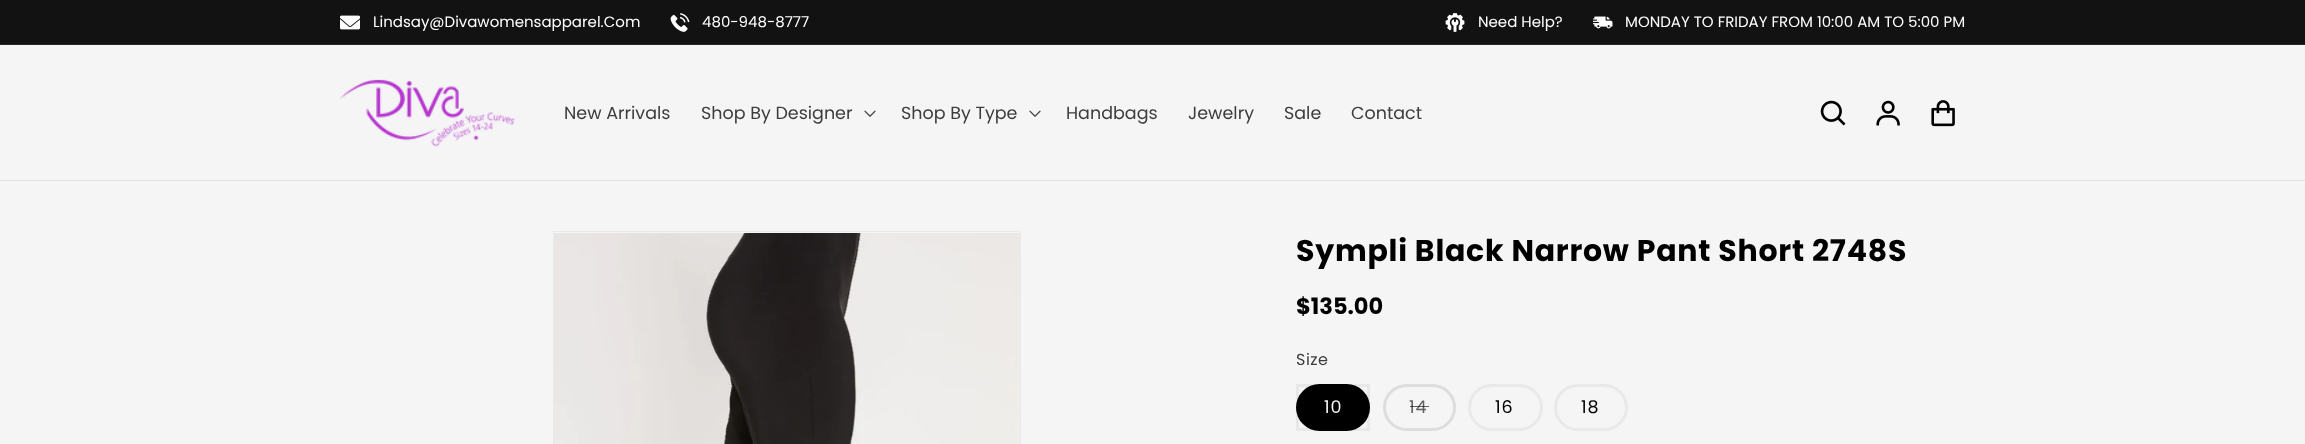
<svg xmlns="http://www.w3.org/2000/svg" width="2305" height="444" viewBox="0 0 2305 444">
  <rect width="100%" height="100%" fill="rgb(245,245,245)"/>
  <rect x="0" y="0" width="2305" height="44" fill="rgb(18,18,18)"/>
  <rect x="0" y="44" width="2305" height="1" fill="rgb(42,42,42)"/>
  <image x="340" y="15" width="20" height="15" href="pic1.png"/>
  <text x="373" y="27" font-family="Poppins" font-size="15" fill="rgb(255,255,255)">Lindsay@Divawomensapparel.Com</text>
  <image x="670" y="13" width="20" height="19" href="pic2.png"/>
  <text x="702" y="27" font-family="Poppins" font-size="15" fill="rgb(255,255,255)">480-948-8777</text>
  <image x="1445" y="13" width="20" height="19" href="pic3.png"/>
  <text x="1478" y="27" font-family="Poppins" font-size="15" fill="rgb(255,255,255)">Need Help?</text>
  <image x="1593" y="16" width="20" height="13" href="pic4.png"/>
  <text x="1625" y="27" font-family="Poppins" font-size="15" fill="rgb(255,255,255)">MONDAY TO FRIDAY FROM 10:00 AM TO 5:00 PM</text>
  <rect x="0" y="180" width="2305" height="1" fill="rgb(225,225,225)"/>
  <image x="340" y="79" width="175" height="68" href="pic5.png"/>
  <g font-family="Poppins" font-size="17.5" fill="rgb(61,61,61)">
    <text x="564" y="119">New Arrivals</text>
    <text x="701" y="119">Shop By Designer</text>
  </g>
  <image x="864" y="110" width="12" height="7" href="pic6.png"/>
  <text x="901" y="119" font-family="Poppins" font-size="17.5" fill="rgb(61,61,61)">Shop By Type</text>
  <image x="1029" y="110" width="12" height="7" href="pic6.png"/>
  <g font-family="Poppins" font-size="17.5" fill="rgb(61,61,61)">
    <text x="1066" y="119">Handbags</text>
    <text x="1188" y="119">Jewelry</text>
    <text x="1284" y="119">Sale</text>
    <text x="1351" y="119">Contact</text>
  </g>
  <image x="1820" y="100" width="26" height="26" href="pic7.png"/>
  <image x="1876" y="100" width="24" height="26" href="pic8.png"/>
  <image x="1931" y="100" width="24" height="27" href="pic9.png"/>
  <rect x="553.5" y="231.5" width="467" height="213" fill="none" stroke="rgb(233,233,233)"/>
  <image x="554" y="233" width="466" height="211" href="pic10.png"/>
  <text x="1296" y="261" font-family="Poppins" font-size="30" font-weight="bold" letter-spacing="0.75" fill="rgb(0,0,0)">Sympli Black Narrow Pant Short 2748S</text>
  <text x="1296" y="314" font-family="Poppins" font-size="22.5" font-weight="bold" fill="rgb(0,0,0)">$135.00</text>
  <text x="1296" y="365" font-family="Poppins" font-size="16" letter-spacing="0.5" fill="rgb(61,61,61)">Size</text>
  <rect x="1296" y="384" width="74" height="47" rx="23.5" fill="rgb(0,0,0)"/>
  <rect x="1297.5" y="385.5" width="71" height="44" fill="none" stroke="rgba(0,0,0,0.05)" stroke-width="3"/>
  <text x="1324" y="413" font-family="Poppins" font-size="17.5" letter-spacing="1" fill="rgb(245,245,245)">10</text>
  <rect x="1384.5" y="385.5" width="70" height="44" rx="22" fill="none" stroke="rgb(221,221,221)" stroke-width="3"/>
  <text x="1409" y="413" font-family="Poppins" font-size="17.5" letter-spacing="1" fill="rgb(98,98,98)">14</text>
  <rect x="1410" y="406" width="19" height="1" fill="rgba(0,0,0,0.6)"/>
  <rect x="1469.5" y="385.5" width="72" height="44" rx="22" fill="none" stroke="rgb(233,233,233)" stroke-width="3"/>
  <text x="1495" y="413" font-family="Poppins" font-size="17.5" letter-spacing="1" fill="rgb(0,0,0)">16</text>
  <rect x="1555.5" y="385.5" width="71" height="44" rx="22" fill="none" stroke="rgb(233,233,233)" stroke-width="3"/>
  <text x="1581" y="413" font-family="Poppins" font-size="17.5" letter-spacing="1" fill="rgb(0,0,0)">18</text>
</svg>
